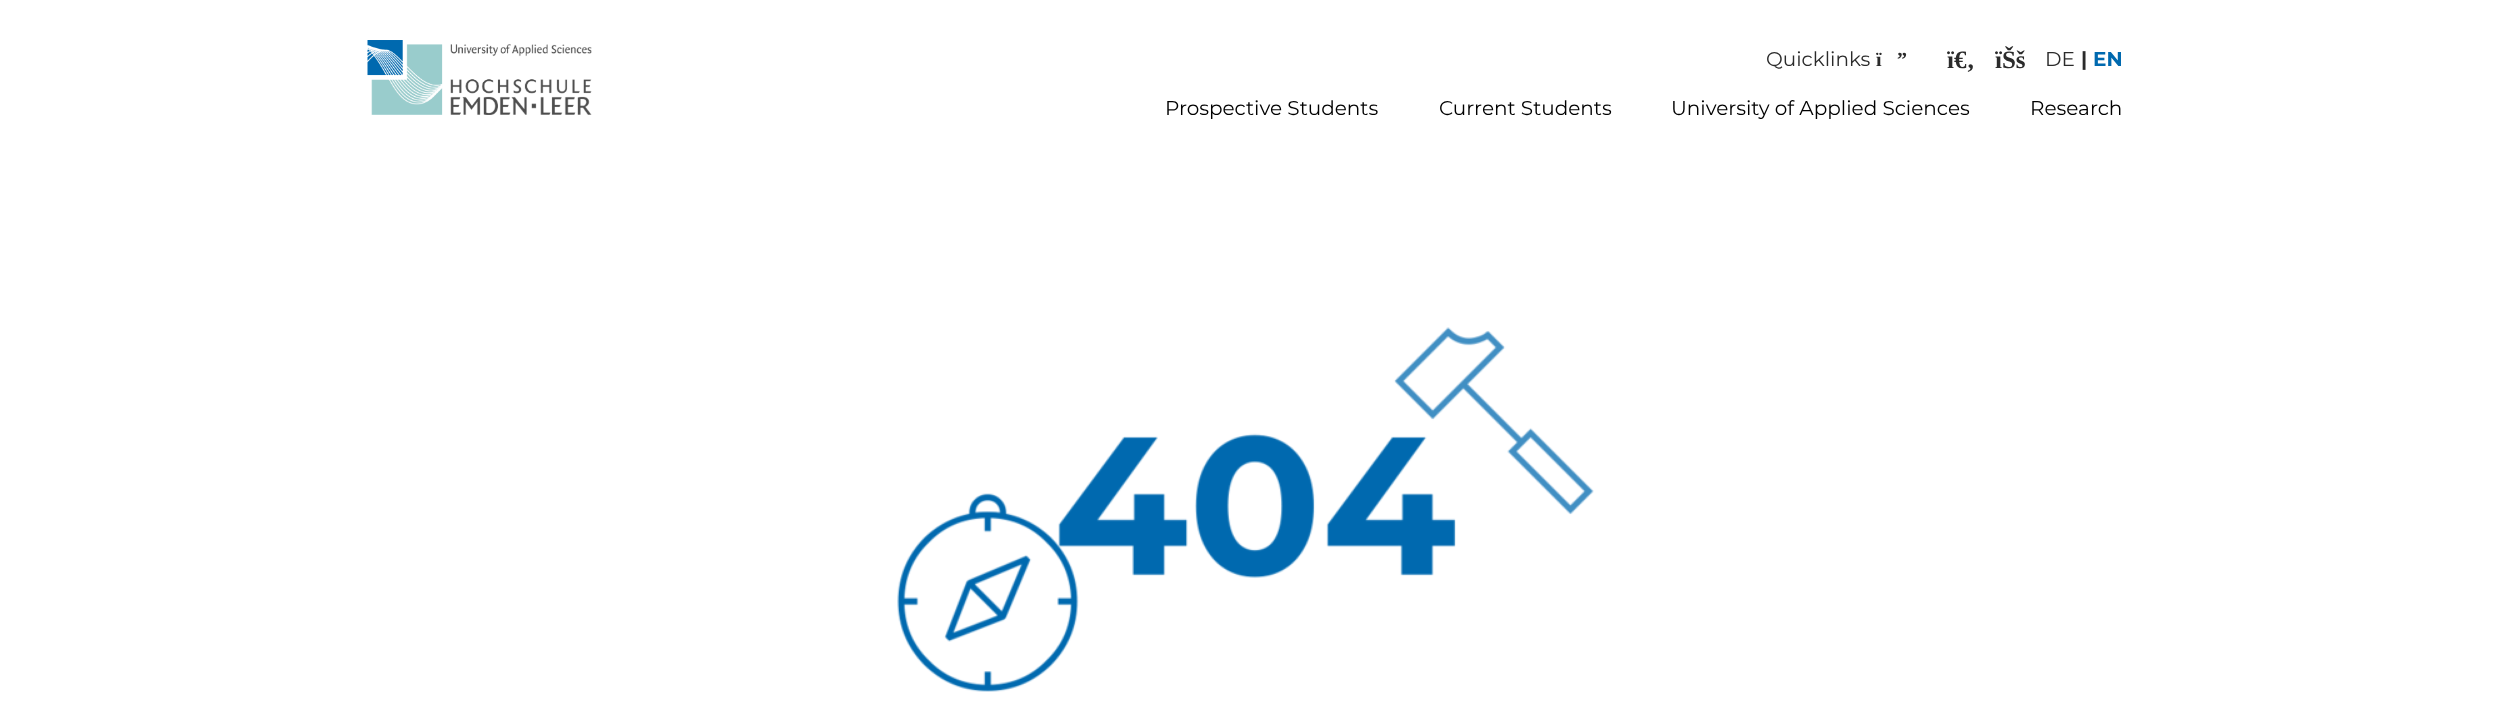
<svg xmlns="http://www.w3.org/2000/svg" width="2510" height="705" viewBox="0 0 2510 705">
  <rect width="100%" height="100%" fill="rgb(255,255,255)"/>
  <image x="367" y="40" width="225" height="75" href="pic1.png"/>
  <text x="1766" y="66" font-family="Montserrat" font-size="20" fill="rgb(43,43,43)">Quicklinks</text>
  <g font-family="Liberation Serif" font-size="20" font-weight="bold" fill="rgb(43,43,43)">
    <text x="1876" y="66">ï</text>
    <text x="1897" y="66">”</text>
  </g>
  <g font-family="Liberation Serif" font-size="25" font-weight="bold" fill="rgb(43,43,43)">
    <text x="1947" y="68">ï€‚</text>
    <text x="1995" y="68">ïŠš</text>
  </g>
  <text x="2045" y="66" font-family="Montserrat" font-size="20" fill="rgb(43,43,43)">DE</text>
  <text x="2081" y="66" font-family="Montserrat" font-size="20" font-weight="bold" fill="rgb(43,43,43)">|</text>
  <text x="2093" y="66" font-family="Montserrat" font-size="20" font-weight="bold" fill="rgb(0,105,175)">EN</text>
  <g font-family="Montserrat" font-size="20" fill="rgb(0,0,0)">
    <text x="1165" y="115">Prospective Students</text>
    <text x="1439" y="115">Current Students</text>
    <text x="1671" y="115">University of Applied Sciences</text>
    <text x="2030" y="115">Research</text>
  </g>
  <image x="897" y="327" width="697" height="365" href="pic2.png"/>
</svg>
